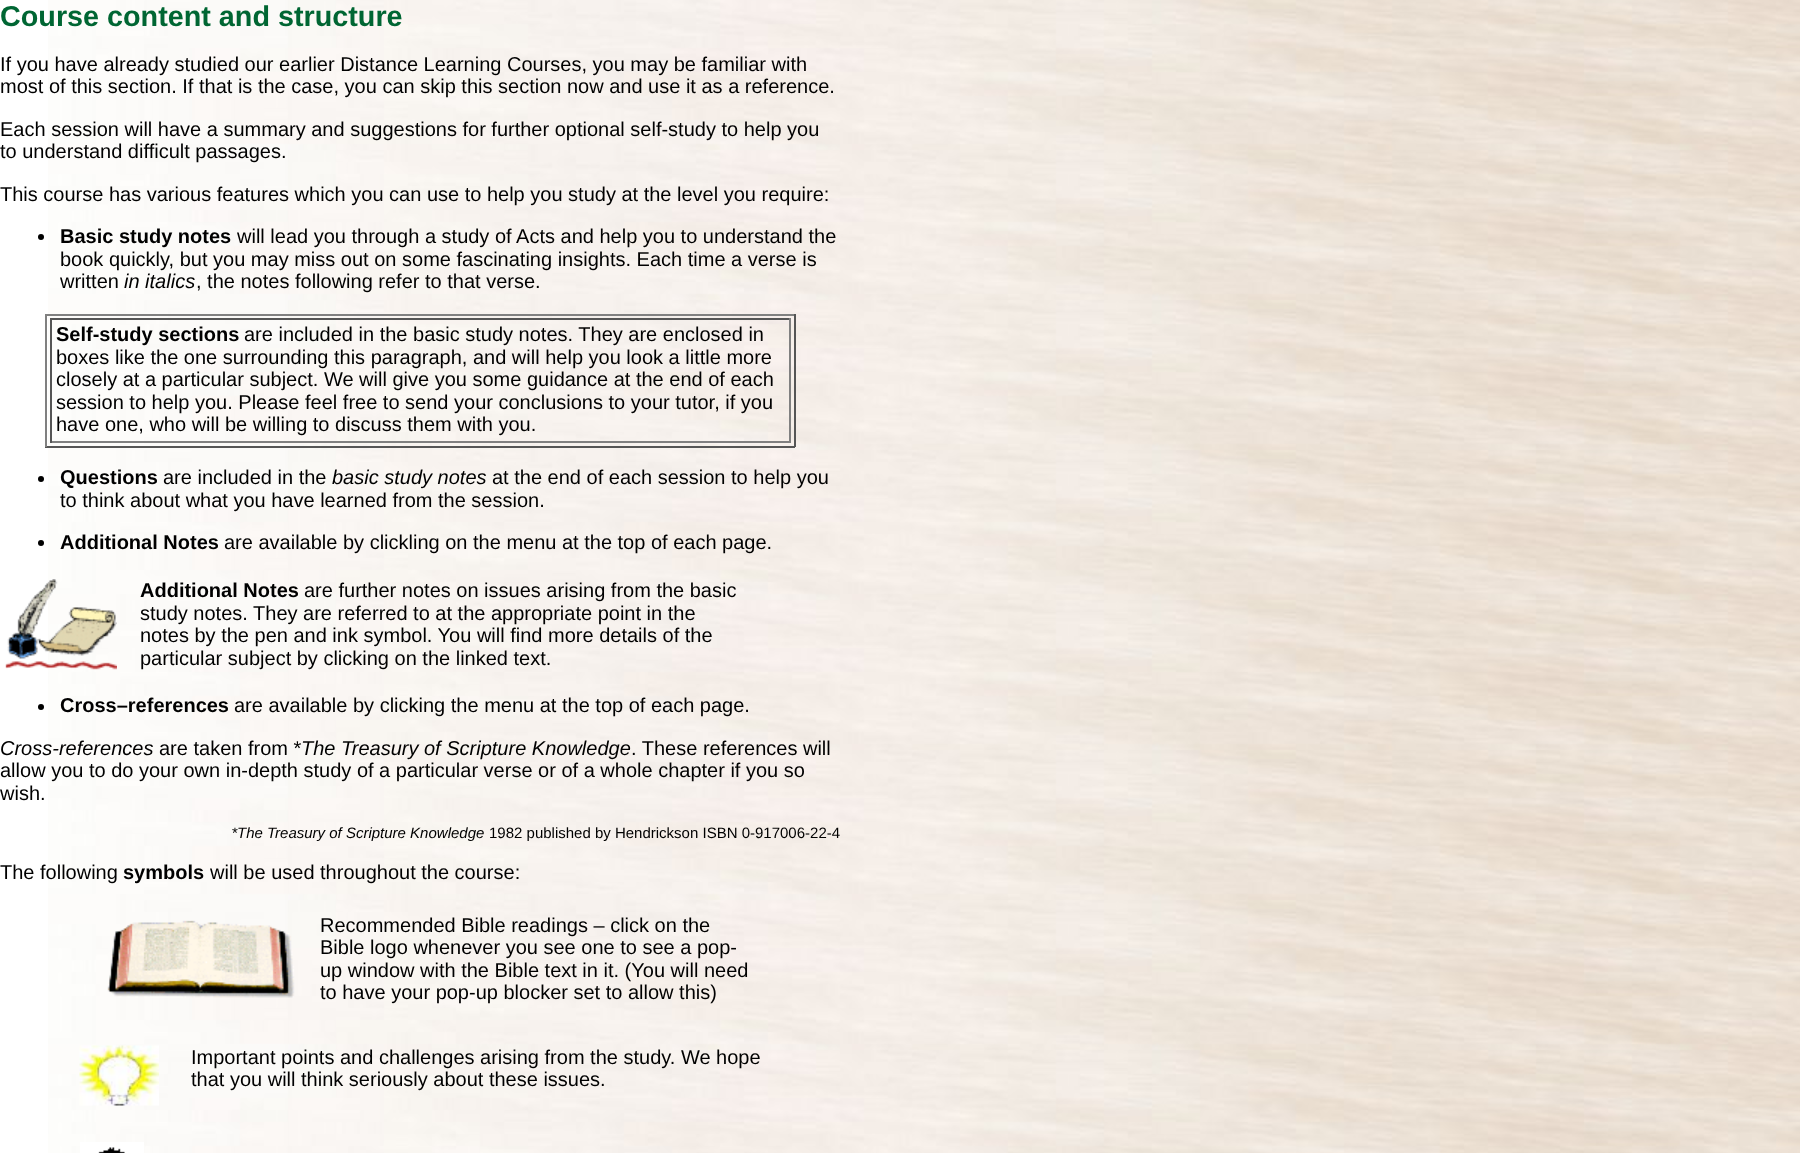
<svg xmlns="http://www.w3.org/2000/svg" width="1800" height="1153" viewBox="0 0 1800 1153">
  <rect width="100%" height="100%" fill="rgb(255,255,255)"/>
  <image x="48" y="0" width="1752" height="1153" href="pic1.png"/>
  <text x="0" y="26" font-family="Liberation Sans" font-size="28.75" font-weight="bold" fill="rgb(0,102,51)">Course content and structure</text>
  <g font-family="Liberation Sans" font-size="20" fill="rgb(0,0,0)">
    <text>
      <tspan x="0" y="71">If you have already studied our earlier Distance Learning Courses, you may be familiar with</tspan>
      <tspan x="0" y="93">most of this section. If that is the case, you can skip this section now and use it as a reference.</tspan>
    </text>
    <text>
      <tspan x="0" y="136">Each session will have a summary and suggestions for further optional self-study to help you</tspan>
      <tspan x="0" y="158">to understand difficult passages.</tspan>
    </text>
    <text x="0" y="201">This course has various features which you can use to help you study at the level you require:</text>
  </g>
  <circle cx="41" cy="237" r="3" fill="rgb(0,0,0)"/>
  <text x="60" y="243" font-family="Liberation Sans" font-size="20" font-weight="bold" fill="rgb(0,0,0)">Basic study notes</text>
  <g font-family="Liberation Sans" font-size="20" fill="rgb(0,0,0)">
    <text x="237" y="243">will lead you through a study of Acts and help you to understand the</text>
    <text>
      <tspan x="60" y="266">book quickly, but you may miss out on some fascinating insights. Each time a verse is</tspan>
      <tspan x="60" y="288">written</tspan>
    </text>
  </g>
  <text x="124" y="288" font-family="Liberation Sans" font-size="20" font-style="italic" fill="rgb(0,0,0)">in italics</text>
  <text x="196" y="288" font-family="Liberation Sans" font-size="20" fill="rgb(0,0,0)">, the notes following refer to that verse.</text>
  <rect x="45" y="314" width="750" height="2" fill="rgb(128,128,128)"/>
  <rect x="794" y="314" width="2" height="133" fill="rgb(85,85,85)"/>
  <rect x="45" y="446" width="750" height="2" fill="rgb(85,85,85)"/>
  <rect x="45" y="314" width="2" height="133" fill="rgb(128,128,128)"/>
  <rect x="50" y="318" width="741" height="2" fill="rgb(85,85,85)"/>
  <rect x="789" y="318" width="2" height="125" fill="rgb(128,128,128)"/>
  <rect x="50" y="441" width="741" height="2" fill="rgb(128,128,128)"/>
  <rect x="50" y="318" width="2" height="125" fill="rgb(85,85,85)"/>
  <text x="56" y="341" font-family="Liberation Sans" font-size="20" font-weight="bold" fill="rgb(0,0,0)">Self-study sections</text>
  <g font-family="Liberation Sans" font-size="20" fill="rgb(0,0,0)">
    <text x="244" y="341">are included in the basic study notes. They are enclosed in</text>
    <text>
      <tspan x="56" y="364">boxes like the one surrounding this paragraph, and will help you look a little more</tspan>
      <tspan x="56" y="386">closely at a particular subject. We will give you some guidance at the end of each</tspan>
      <tspan x="56" y="409">session to help you. Please feel free to send your conclusions to your tutor, if you</tspan>
      <tspan x="56" y="431">have one, who will be willing to discuss them with you.</tspan>
    </text>
  </g>
  <circle cx="41" cy="479" r="3" fill="rgb(0,0,0)"/>
  <text x="60" y="484" font-family="Liberation Sans" font-size="20" font-weight="bold" fill="rgb(0,0,0)">Questions</text>
  <text x="163" y="484" font-family="Liberation Sans" font-size="20" fill="rgb(0,0,0)">are included in the</text>
  <text x="332" y="484" font-family="Liberation Sans" font-size="20" font-style="italic" fill="rgb(0,0,0)">basic study notes</text>
  <g font-family="Liberation Sans" font-size="20" fill="rgb(0,0,0)">
    <text x="492" y="484">at the end of each session to help you</text>
    <text x="60" y="507">to think about what you have learned from the session.</text>
  </g>
  <circle cx="41" cy="543" r="3" fill="rgb(0,0,0)"/>
  <text x="60" y="549" font-family="Liberation Sans" font-size="20" font-weight="bold" fill="rgb(0,0,0)">Additional Notes</text>
  <text x="224" y="549" font-family="Liberation Sans" font-size="20" fill="rgb(0,0,0)">are available by clickling on the menu at the top of each page.</text>
  <image x="5" y="579" width="112" height="91" href="pic2.png"/>
  <text x="140" y="597" font-family="Liberation Sans" font-size="20" font-weight="bold" fill="rgb(0,0,0)">Additional Notes</text>
  <g font-family="Liberation Sans" font-size="20" fill="rgb(0,0,0)">
    <text x="304" y="597">are further notes on issues arising from the basic</text>
    <text>
      <tspan x="140" y="620">study notes. They are referred to at the appropriate point in the</tspan>
      <tspan x="140" y="642">notes by the pen and ink symbol. You will find more details of the</tspan>
      <tspan x="140" y="665">particular subject by clicking on the linked text.</tspan>
    </text>
  </g>
  <circle cx="41" cy="707" r="3" fill="rgb(0,0,0)"/>
  <text x="60" y="712" font-family="Liberation Sans" font-size="20" font-weight="bold" fill="rgb(0,0,0)">Cross–references</text>
  <text x="234" y="712" font-family="Liberation Sans" font-size="20" fill="rgb(0,0,0)">are available by clicking the menu at the top of each page.</text>
  <text x="0" y="755" font-family="Liberation Sans" font-size="20" font-style="italic" fill="rgb(0,0,0)">Cross-references</text>
  <text x="159" y="755" font-family="Liberation Sans" font-size="20" fill="rgb(0,0,0)">are taken from *</text>
  <text x="301" y="755" font-family="Liberation Sans" font-size="20" font-style="italic" fill="rgb(0,0,0)">The Treasury of Scripture Knowledge</text>
  <g font-family="Liberation Sans" font-size="20" fill="rgb(0,0,0)">
    <text x="631" y="755">. These references will</text>
    <text>
      <tspan x="0" y="777">allow you to do your own in-depth study of a particular verse or of a whole chapter if you so</tspan>
      <tspan x="0" y="800">wish.</tspan>
    </text>
  </g>
  <text x="232" y="838" font-family="Liberation Sans" font-size="15" fill="rgb(0,0,0)">*</text>
  <text x="237" y="838" font-family="Liberation Sans" font-size="15" font-style="italic" fill="rgb(0,0,0)">The Treasury of Scripture Knowledge</text>
  <text x="489" y="838" font-family="Liberation Sans" font-size="15" fill="rgb(0,0,0)">1982 published by Hendrickson ISBN 0-917006-22-4</text>
  <text x="0" y="879" font-family="Liberation Sans" font-size="20" fill="rgb(0,0,0)">The following</text>
  <text x="123" y="879" font-family="Liberation Sans" font-size="20" font-weight="bold" fill="rgb(0,0,0)">symbols</text>
  <text x="210" y="879" font-family="Liberation Sans" font-size="20" fill="rgb(0,0,0)">will be used throughout the course:</text>
  <image x="107" y="920" width="188" height="78" href="pic3.png"/>
  <g font-family="Liberation Sans" font-size="20" fill="rgb(0,0,0)">
    <text>
      <tspan x="320" y="932">Recommended Bible readings – click on the</tspan>
      <tspan x="320" y="954">Bible logo whenever you see one to see a pop-</tspan>
      <tspan x="320" y="977">up window with the Bible text in it. (You will need</tspan>
      <tspan x="320" y="999">to have your pop-up blocker set to allow this)</tspan>
    </text>
  </g>
  <image x="79" y="1045" width="80" height="61" href="pic4.png"/>
  <g font-family="Liberation Sans" font-size="20" fill="rgb(0,0,0)">
    <text>
      <tspan x="191" y="1064">Important points and challenges arising from the study. We hope</tspan>
      <tspan x="191" y="1086">that you will think seriously about these issues.</tspan>
    </text>
  </g>
  <image x="80" y="1142" width="64" height="11" href="pic5.png"/>
</svg>
